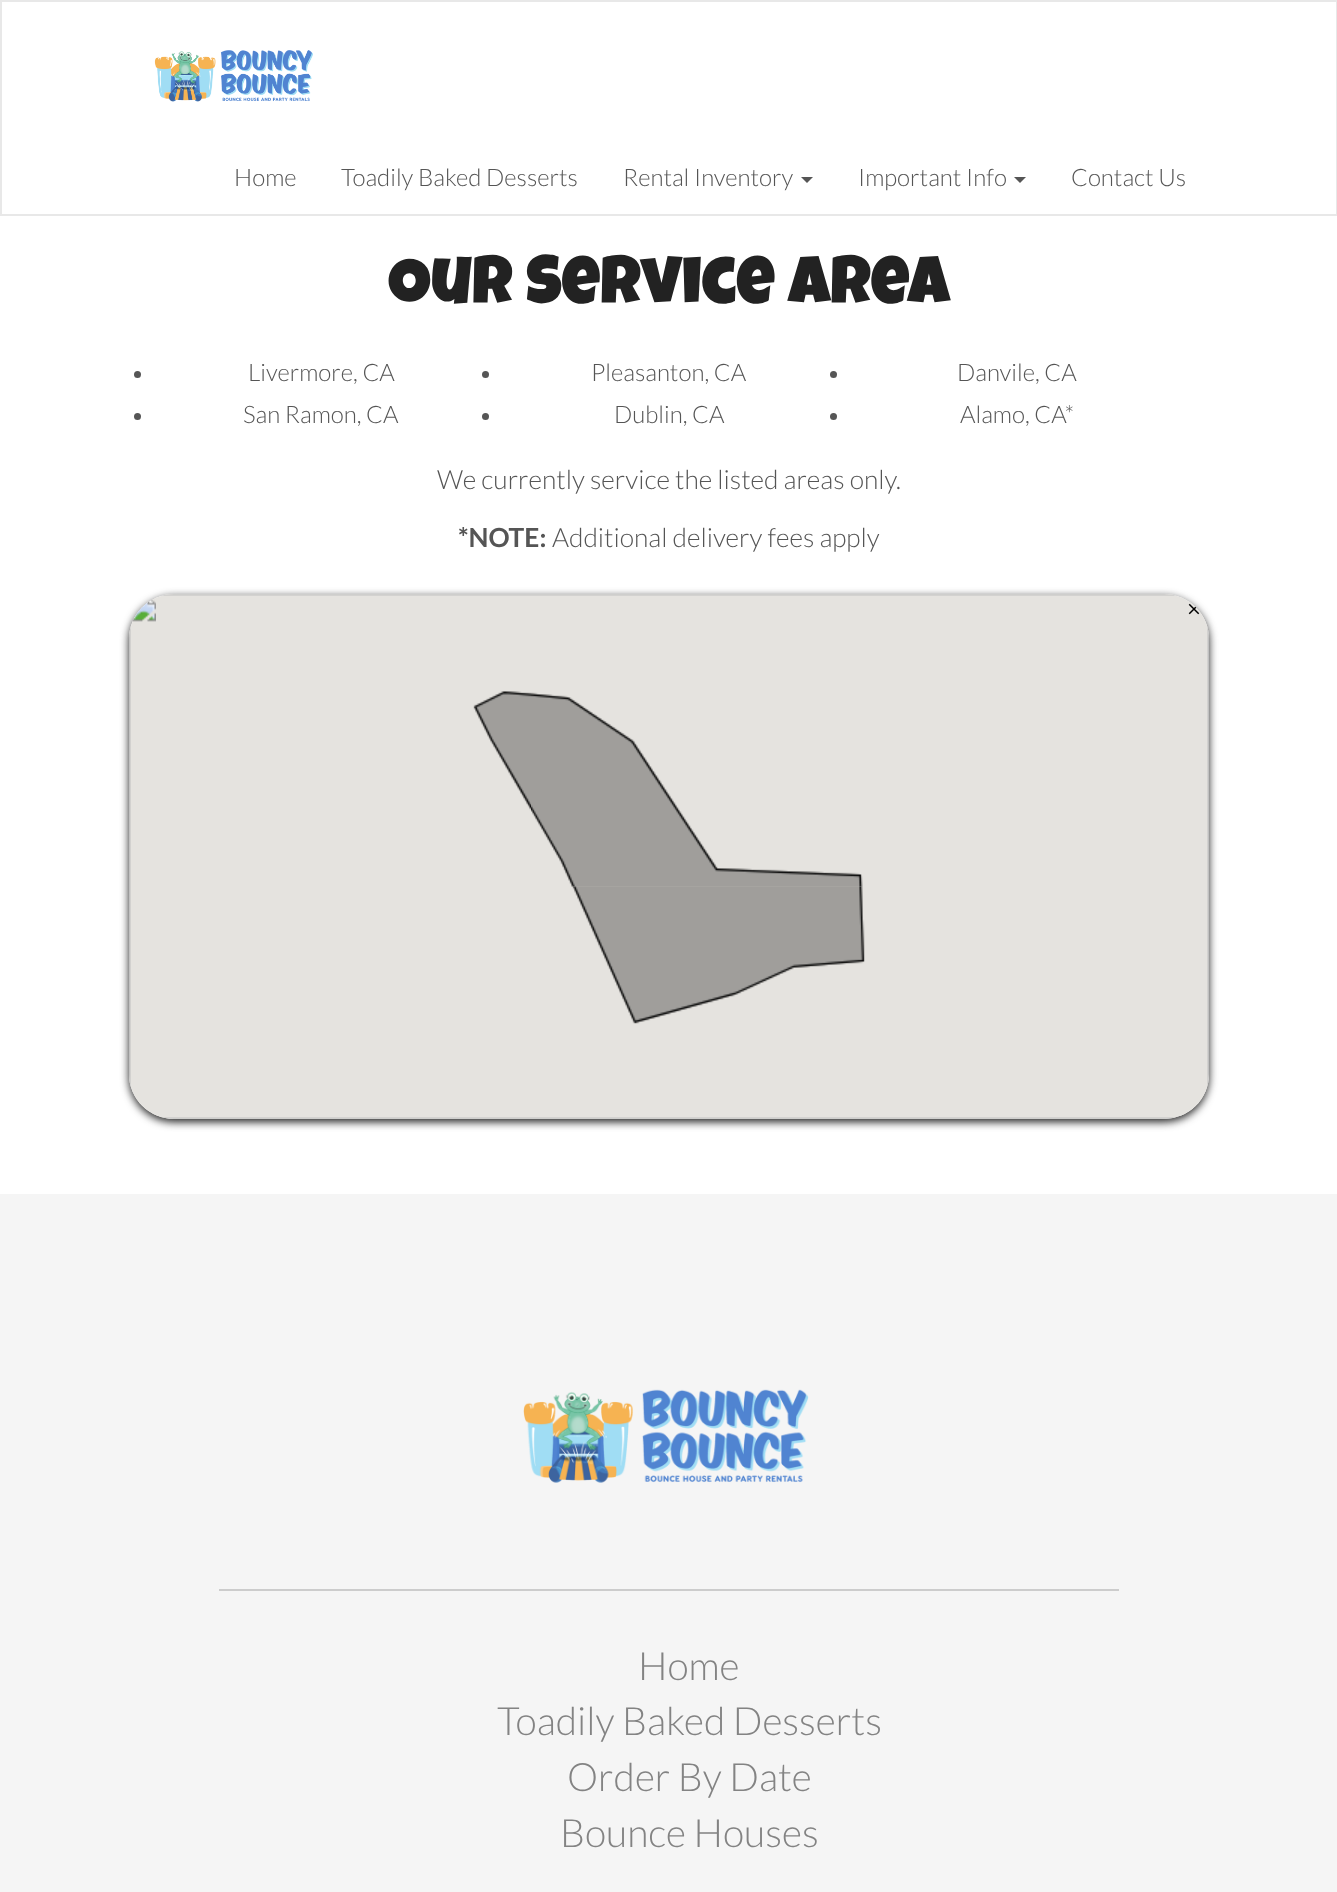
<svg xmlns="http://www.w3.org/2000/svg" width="1337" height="1892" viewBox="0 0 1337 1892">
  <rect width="100%" height="100%" fill="rgb(255,255,255)"/>
  <rect x="1" y="1" width="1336" height="214" fill="none" stroke="rgb(232,232,232)" stroke-width="2"/>
  <image x="154" y="50" width="159" height="52" href="pic1.png"/>
  <g font-family="Lato" font-size="24" font-weight="300" fill="rgb(85,85,85)">
    <text x="234" y="186">Home</text>
    <text x="341" y="186">Toadily Baked Desserts</text>
    <text x="623" y="186">Rental Inventory</text>
  </g>
  <path d="M801 177H813L807 183Z" fill="rgb(85,85,85)"/>
  <text x="858" y="186" font-family="Lato" font-size="24" font-weight="300" fill="rgb(85,85,85)">Important Info</text>
  <path d="M1014 177H1026L1020 183Z" fill="rgb(85,85,85)"/>
  <text x="1071" y="186" font-family="Lato" font-size="24" font-weight="300" fill="rgb(85,85,85)">Contact Us</text>
  <text x="388" y="303" font-family="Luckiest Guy" font-size="67.25" fill="rgb(34,34,34)">Our Service Area</text>
  <circle cx="137.5" cy="374.5" r="3.5" fill="rgb(86,86,86)"/>
  <text x="248" y="381" font-family="Lato" font-size="24" font-weight="300" fill="rgb(85,85,85)">Livermore, CA</text>
  <circle cx="485.5" cy="374.5" r="3.5" fill="rgb(86,86,86)"/>
  <text x="591" y="381" font-family="Lato" font-size="24" font-weight="300" fill="rgb(85,85,85)">Pleasanton, CA</text>
  <circle cx="833.5" cy="374.5" r="3.5" fill="rgb(86,86,86)"/>
  <text x="957" y="381" font-family="Lato" font-size="24" font-weight="300" fill="rgb(85,85,85)">Danvile, CA</text>
  <circle cx="137.5" cy="416.5" r="3.5" fill="rgb(86,86,86)"/>
  <text x="243" y="423" font-family="Lato" font-size="24" font-weight="300" fill="rgb(85,85,85)">San Ramon, CA</text>
  <circle cx="485.5" cy="416.5" r="3.5" fill="rgb(86,86,86)"/>
  <text x="614" y="423" font-family="Lato" font-size="24" font-weight="300" fill="rgb(85,85,85)">Dublin, CA</text>
  <circle cx="833.5" cy="416.5" r="3.5" fill="rgb(86,86,86)"/>
  <text x="960" y="423" font-family="Lato" font-size="24" font-weight="300" fill="rgb(85,85,85)">Alamo, CA*</text>
  <text x="437" y="489" font-family="Lato" font-size="26.4" font-weight="300" fill="rgb(85,85,85)">We currently service the listed areas only.</text>
  <text x="458" y="547" font-family="Lato" font-size="26.4" font-weight="bold" fill="rgb(85,85,85)">*NOTE:</text>
  <text x="552" y="547" font-family="Lato" font-size="26.4" font-weight="300" fill="rgb(85,85,85)">Additional delivery fees apply</text>
  <rect x="129" y="597" width="1080" height="525" rx="45" fill="rgb(34,34,34)" filter="blur(4px)"/>
  <image x="129" y="594" width="1080" height="525" href="pic2.png"/>
  <rect x="0" y="1194" width="1337" height="698" fill="rgb(245,245,245)"/>
  <rect x="219" y="1589" width="900" height="2" fill="rgb(204,204,204)"/>
  <image x="523" y="1389" width="286" height="94" href="pic3.png"/>
  <g font-family="Lato" font-size="39" font-weight="300" fill="rgb(131,131,131)">
    <text x="638" y="1680">Home</text>
    <text x="497" y="1735">Toadily Baked Desserts</text>
    <text x="567" y="1791">Order By Date</text>
    <text x="560" y="1847">Bounce Houses</text>
  </g>
</svg>
